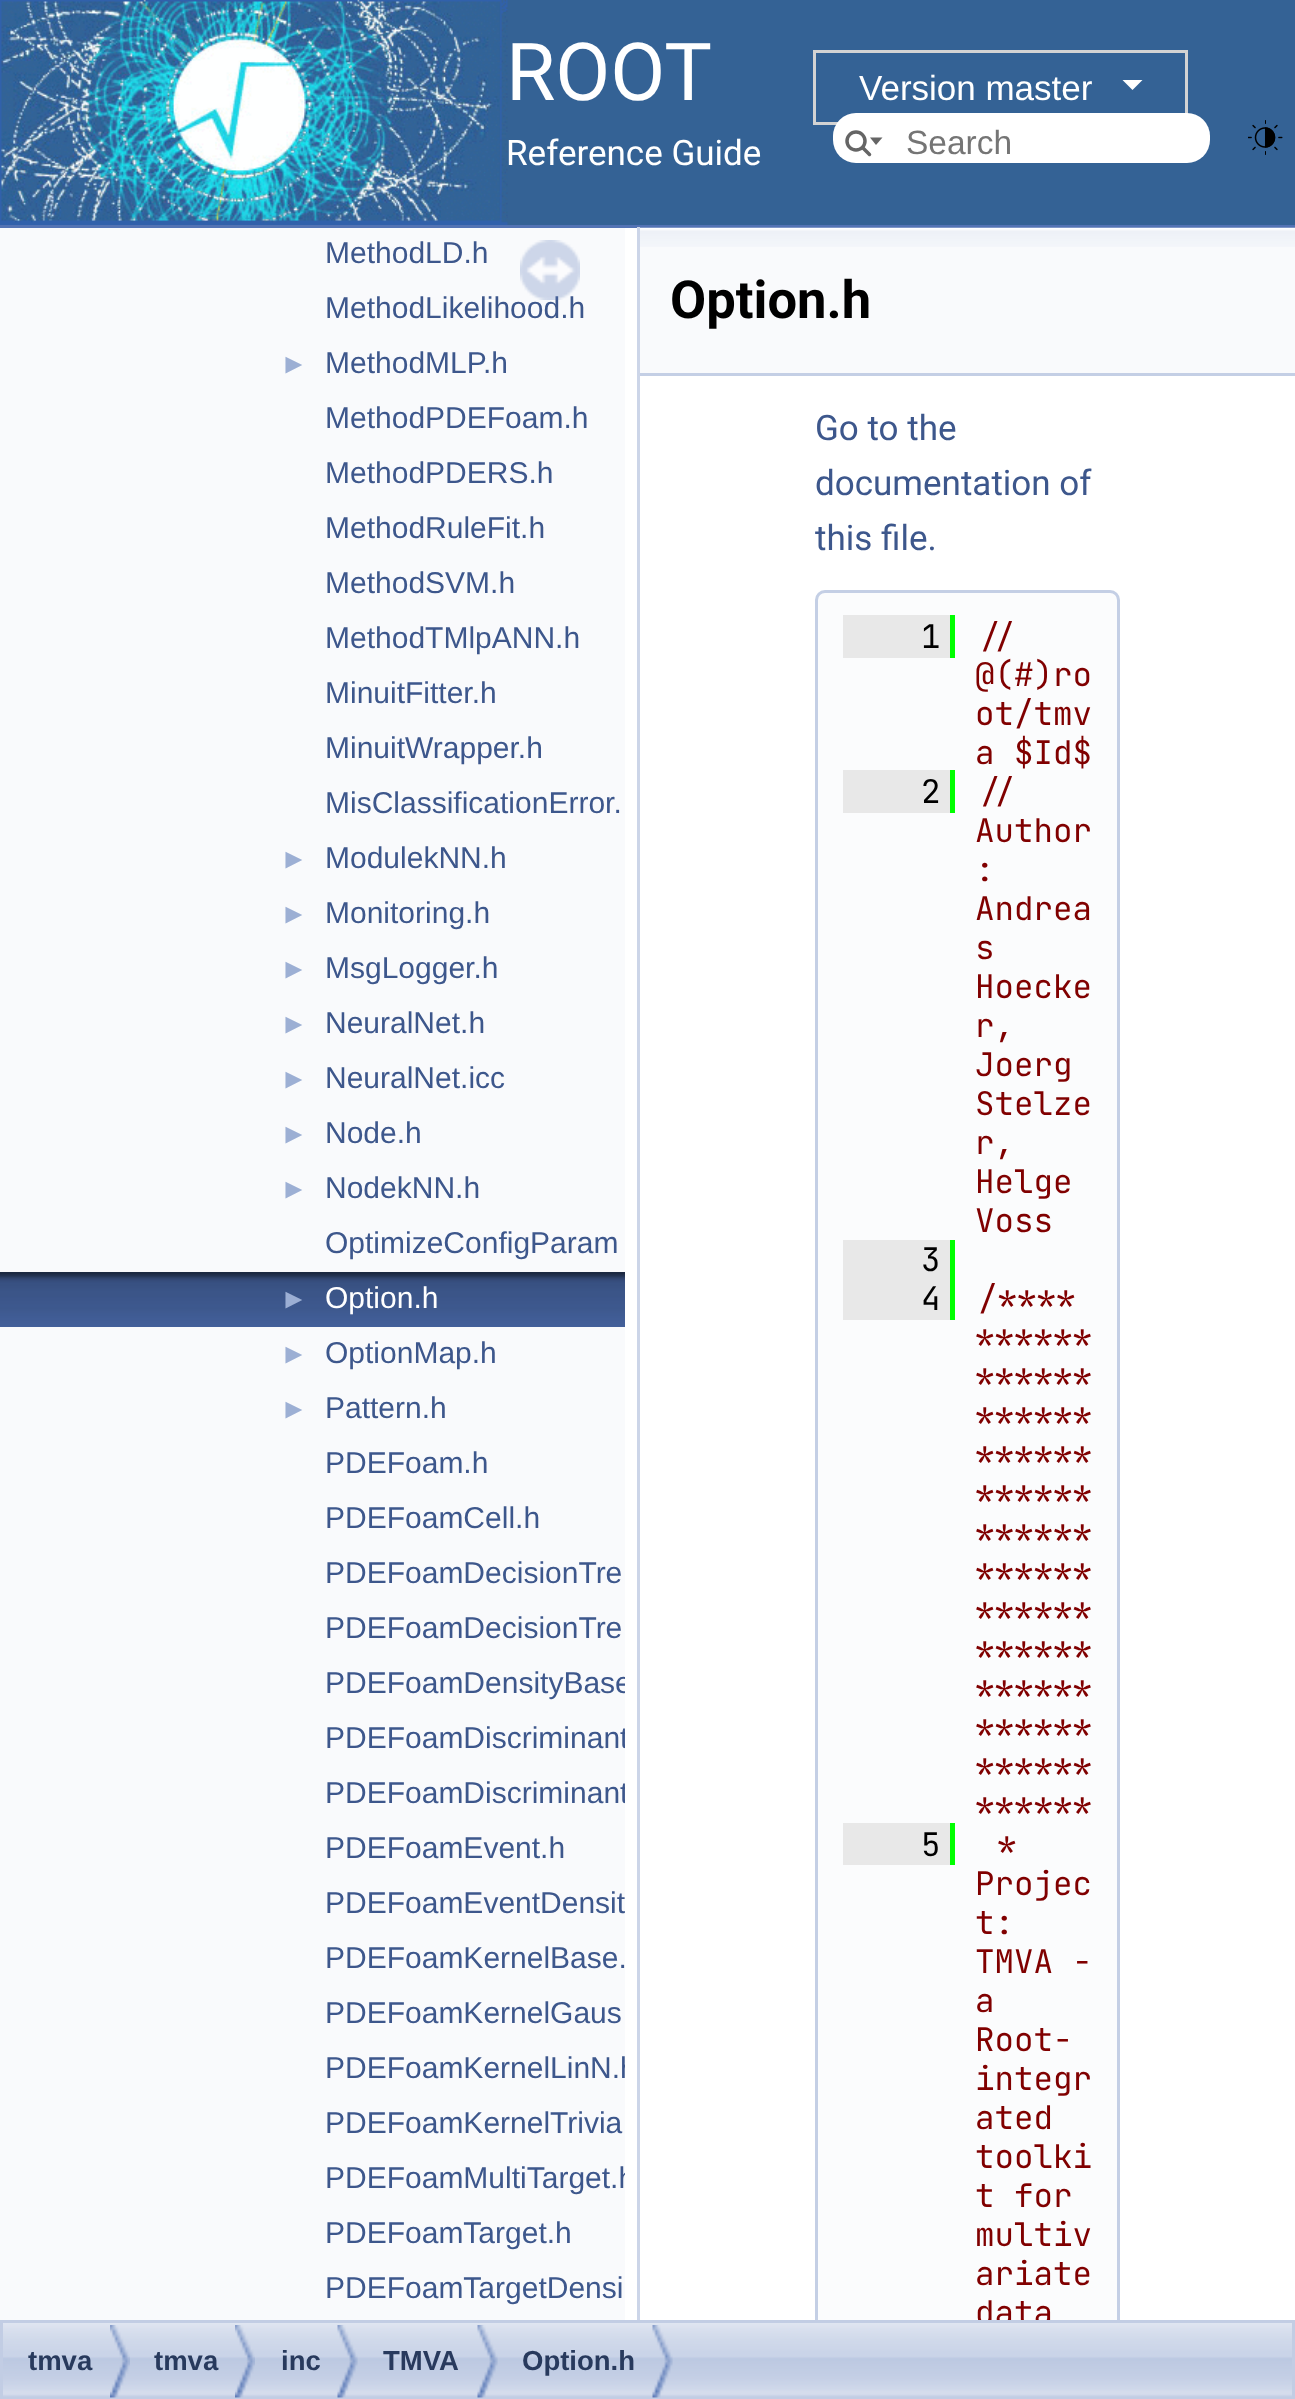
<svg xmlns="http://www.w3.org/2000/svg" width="1295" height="2399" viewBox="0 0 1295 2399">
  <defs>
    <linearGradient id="g1" gradientUnits="userSpaceOnUse" x1="254" y1="177" x2="254" y2="218"><stop offset="0" stop-color="rgb(52,98,149)"/><stop offset="0.94" stop-color="rgb(52,98,149)"/><stop offset="1" stop-color="rgb(61,87,140)"/></linearGradient>
    <clipPath id="clip1"><rect x="0" y="228" width="625" height="2092"/></clipPath>
    <clipPath id="clip2"><rect x="640" y="228" width="655" height="2092"/></clipPath>
  </defs>
  <rect width="100%" height="100%" fill="rgb(255,255,255)"/>
  <rect x="0" y="225" width="1295" height="3" fill="rgb(83,115,180)"/>
  <rect x="507" y="0" width="788" height="225" fill="rgb(52,98,149)"/>
  <rect x="507" y="216" width="1" height="2" fill="url(#g1)"/>
  <image x="0" y="0" width="508" height="225" href="pic1.png"/>
  <text x="506" y="100" font-family="Roboto" font-size="80" fill="rgb(255,255,255)">ROOT</text>
  <rect x="814.5" y="51.5" width="372" height="72" fill="none" stroke="rgb(211,211,211)" stroke-width="3"/>
  <text x="859" y="100" font-family="Liberation Sans" font-size="35" fill="rgb(255,255,255)">Version master</text>
  <path d="M1122.5 80H1142.5L1132.5 90Z" fill="rgb(255,255,255)"/>
  <text x="506" y="165" font-family="Roboto" font-size="35" fill="rgb(255,255,255)">Reference Guide</text>
  <rect x="833" y="113" width="377" height="50" rx="23" fill="rgb(255,255,255)"/>
  <circle cx="856" cy="141" r="9" fill="none" stroke="rgb(101,101,101)" stroke-width="3.5"/>
  <path d="M870 137.5L876 145L882.5 137.5Z" fill="rgb(101,101,101)"/>
  <path d="M863 148L869.5 154.5" fill="none" stroke="rgb(101,101,101)" stroke-width="3.5" stroke-linecap="round"/>
  <text x="906" y="154" font-family="Liberation Sans" font-size="33.5" fill="rgb(117,117,117)">Search</text>
  <image x="1248" y="120" width="35" height="35" href="pic2.png"/>
  <rect x="0" y="228" width="625" height="2092" fill="rgb(249,250,252)"/>
  <text x="325" y="318" font-family="Liberation Sans" font-size="30" fill="rgb(61,87,140)">MethodLikelihood.h</text>
  <image x="520" y="240" width="60" height="60" href="pic3.png"/>
  <text x="325" y="263" font-family="Liberation Sans" font-size="30" fill="rgb(61,87,140)">MethodLD.h</text>
  <text x="280" y="373" font-family="Liberation Sans" font-size="28" fill="rgb(156,175,212)">►</text>
  <g font-family="Liberation Sans" font-size="30" fill="rgb(61,87,140)">
    <text>
      <tspan x="325" y="373">MethodMLP.h</tspan>
      <tspan x="325" y="428">MethodPDEFoam.h</tspan>
      <tspan x="325" y="483">MethodPDERS.h</tspan>
      <tspan x="325" y="538">MethodRuleFit.h</tspan>
      <tspan x="325" y="593">MethodSVM.h</tspan>
      <tspan x="325" y="648">MethodTMlpANN.h</tspan>
      <tspan x="325" y="703">MinuitFitter.h</tspan>
      <tspan x="325" y="758">MinuitWrapper.h</tspan>
      <tspan x="325" y="813">MisClassificationError.</tspan>
    </text>
  </g>
  <text x="280" y="868" font-family="Liberation Sans" font-size="28" fill="rgb(156,175,212)">►</text>
  <text x="325" y="868" font-family="Liberation Sans" font-size="30" fill="rgb(61,87,140)">ModulekNN.h</text>
  <text x="280" y="923" font-family="Liberation Sans" font-size="28" fill="rgb(156,175,212)">►</text>
  <text x="325" y="923" font-family="Liberation Sans" font-size="30" fill="rgb(61,87,140)">Monitoring.h</text>
  <text x="280" y="978" font-family="Liberation Sans" font-size="28" fill="rgb(156,175,212)">►</text>
  <text x="325" y="978" font-family="Liberation Sans" font-size="30" fill="rgb(61,87,140)">MsgLogger.h</text>
  <text x="280" y="1033" font-family="Liberation Sans" font-size="28" fill="rgb(156,175,212)">►</text>
  <text x="325" y="1033" font-family="Liberation Sans" font-size="30" fill="rgb(61,87,140)">NeuralNet.h</text>
  <text x="280" y="1088" font-family="Liberation Sans" font-size="28" fill="rgb(156,175,212)">►</text>
  <text x="325" y="1088" font-family="Liberation Sans" font-size="30" fill="rgb(61,87,140)">NeuralNet.icc</text>
  <text x="280" y="1143" font-family="Liberation Sans" font-size="28" fill="rgb(156,175,212)">►</text>
  <text x="325" y="1143" font-family="Liberation Sans" font-size="30" fill="rgb(61,87,140)">Node.h</text>
  <text x="280" y="1198" font-family="Liberation Sans" font-size="28" fill="rgb(156,175,212)">►</text>
  <g font-family="Liberation Sans" font-size="30" fill="rgb(61,87,140)">
    <text>
      <tspan x="325" y="1198">NodekNN.h</tspan>
      <tspan x="325" y="1253">OptimizeConfigParam</tspan>
    </text>
  </g>
  <image x="0" y="1272" width="625" height="55" href="pic4.png"/>
  <text x="280" y="1308" font-family="Liberation Sans" font-size="28" fill="rgb(156,175,212)">►</text>
  <text x="325" y="1308" font-family="Liberation Sans" font-size="30" fill="rgb(255,255,255)">Option.h</text>
  <text x="280" y="1363" font-family="Liberation Sans" font-size="28" fill="rgb(156,175,212)">►</text>
  <text x="325" y="1363" font-family="Liberation Sans" font-size="30" fill="rgb(61,87,140)">OptionMap.h</text>
  <text x="280" y="1418" font-family="Liberation Sans" font-size="28" fill="rgb(156,175,212)">►</text>
  <g font-family="Liberation Sans" font-size="30" fill="rgb(61,87,140)">
    <text>
      <tspan x="325" y="1418">Pattern.h</tspan>
      <tspan x="325" y="1473">PDEFoam.h</tspan>
      <tspan x="325" y="1528">PDEFoamCell.h</tspan>
      <tspan x="325" y="1583">PDEFoamDecisionTre</tspan>
      <tspan x="325" y="1638">PDEFoamDecisionTre</tspan>
    </text>
  </g>
  <g clip-path="url(#clip1)">
    <g font-family="Liberation Sans" font-size="30" fill="rgb(61,87,140)">
      <text>
        <tspan x="325" y="1693">PDEFoamDensityBase</tspan>
        <tspan x="325" y="1748">PDEFoamDiscriminant</tspan>
        <tspan x="325" y="1803">PDEFoamDiscriminant</tspan>
      </text>
    </g>
  </g>
  <g font-family="Liberation Sans" font-size="30" fill="rgb(61,87,140)">
    <text>
      <tspan x="325" y="1858">PDEFoamEvent.h</tspan>
      <tspan x="325" y="1913">PDEFoamEventDensit</tspan>
      <tspan x="325" y="1968">PDEFoamKernelBase.</tspan>
      <tspan x="325" y="2023">PDEFoamKernelGaus</tspan>
    </text>
  </g>
  <g clip-path="url(#clip1)">
    <text x="325" y="2078" font-family="Liberation Sans" font-size="30" fill="rgb(61,87,140)">PDEFoamKernelLinN.h</text>
  </g>
  <text x="325" y="2133" font-family="Liberation Sans" font-size="30" fill="rgb(61,87,140)">PDEFoamKernelTrivia</text>
  <g clip-path="url(#clip1)">
    <text x="325" y="2188" font-family="Liberation Sans" font-size="30" fill="rgb(61,87,140)">PDEFoamMultiTarget.h</text>
  </g>
  <g font-family="Liberation Sans" font-size="30" fill="rgb(61,87,140)">
    <text>
      <tspan x="325" y="2243">PDEFoamTarget.h</tspan>
      <tspan x="325" y="2298">PDEFoamTargetDensi</tspan>
    </text>
  </g>
  <rect x="637" y="227" width="3" height="2093" fill="rgb(204,213,232)"/>
  <rect x="640" y="247" width="655" height="126" fill="rgb(249,250,252)"/>
  <image x="640" y="227" width="655" height="20" href="pic5.png"/>
  <rect x="640" y="373" width="655" height="3" fill="rgb(196,207,229)"/>
  <text x="670" y="318" font-family="Roboto" font-size="52.5" font-weight="bold" fill="rgb(0,0,0)">Option.h</text>
  <g font-family="Roboto" font-size="35" fill="rgb(61,87,140)">
    <text>
      <tspan x="815" y="440">Go to the</tspan>
      <tspan x="815" y="495">documentation of</tspan>
      <tspan x="815" y="550">this file.</tspan>
    </text>
  </g>
  <path d="M825 590H1110C1115.5 590 1120 594.5 1120 600V2320H815V600C815 594.5 819.5 590 825 590Z" fill="rgb(251,252,253)"/>
  <image x="3" y="2323" width="1289" height="74" href="pic6.png"/>
  <rect x="1.5" y="2321.5" width="1292" height="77" fill="none" stroke="rgb(194,205,228)" stroke-width="3"/>
  <g clip-path="url(#clip2)">
    <rect x="816.5" y="591.5" width="302" height="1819" rx="8.5" fill="none" stroke="rgb(196,207,229)" stroke-width="3"/>
  </g>
  <rect x="843" y="615" width="107" height="43" fill="rgb(232,232,232)"/>
  <text x="921" y="648" font-family="JetBrains Mono" font-size="32.5" fill="rgb(0,0,0)">1</text>
  <rect x="950" y="615" width="5" height="43" fill="rgb(0,255,0)"/>
  <g font-family="JetBrains Mono" font-size="32.5" fill="rgb(128,0,0)">
    <text x="978" y="648">//</text>
    <text>
      <tspan x="975" y="686">@(#)ro</tspan>
      <tspan x="975" y="725">ot/tmv</tspan>
      <tspan x="975" y="764">a $Id$</tspan>
    </text>
  </g>
  <rect x="843" y="770" width="107" height="43" fill="rgb(232,232,232)"/>
  <text x="921" y="803" font-family="JetBrains Mono" font-size="32.5" fill="rgb(0,0,0)">2</text>
  <rect x="950" y="770" width="5" height="43" fill="rgb(0,255,0)"/>
  <g font-family="JetBrains Mono" font-size="32.5" fill="rgb(128,0,0)">
    <text x="978" y="803">//</text>
    <text>
      <tspan x="975" y="842">Author</tspan>
      <tspan x="975" y="881">:</tspan>
      <tspan x="975" y="920">Andrea</tspan>
      <tspan x="975" y="959">s</tspan>
      <tspan x="975" y="998">Hoecke</tspan>
      <tspan x="975" y="1037">r,</tspan>
      <tspan x="975" y="1076">Joerg</tspan>
      <tspan x="975" y="1115">Stelze</tspan>
      <tspan x="975" y="1154">r,</tspan>
      <tspan x="975" y="1193">Helge</tspan>
      <tspan x="975" y="1232">Voss</tspan>
    </text>
  </g>
  <rect x="843" y="1240" width="107" height="80" fill="rgb(232,232,232)"/>
  <text x="921" y="1271" font-family="JetBrains Mono" font-size="32.5" fill="rgb(0,0,0)">3</text>
  <rect x="950" y="1240" width="5" height="80" fill="rgb(0,255,0)"/>
  <text x="921" y="1310" font-family="JetBrains Mono" font-size="32.5" fill="rgb(0,0,0)">4</text>
  <g font-family="JetBrains Mono" font-size="32.5" fill="rgb(128,0,0)">
    <text x="978" y="1310">/****</text>
    <text>
      <tspan x="975" y="1349">******</tspan>
      <tspan x="975" y="1388">******</tspan>
      <tspan x="975" y="1427">******</tspan>
      <tspan x="975" y="1466">******</tspan>
      <tspan x="975" y="1505">******</tspan>
      <tspan x="975" y="1544">******</tspan>
      <tspan x="975" y="1583">******</tspan>
      <tspan x="975" y="1622">******</tspan>
      <tspan x="975" y="1661">******</tspan>
      <tspan x="975" y="1700">******</tspan>
      <tspan x="975" y="1739">******</tspan>
      <tspan x="975" y="1778">******</tspan>
      <tspan x="975" y="1817">******</tspan>
    </text>
  </g>
  <rect x="843" y="1823" width="107" height="42" fill="rgb(232,232,232)"/>
  <text x="921" y="1856" font-family="JetBrains Mono" font-size="32.5" fill="rgb(0,0,0)">5</text>
  <rect x="950" y="1823" width="5" height="42" fill="rgb(0,255,0)"/>
  <g font-family="JetBrains Mono" font-size="32.5" fill="rgb(128,0,0)">
    <text x="997" y="1856">*</text>
    <text>
      <tspan x="975" y="1895">Projec</tspan>
      <tspan x="975" y="1934">t:</tspan>
      <tspan x="975" y="1973">TMVA -</tspan>
      <tspan x="975" y="2012">a</tspan>
      <tspan x="975" y="2051">Root-</tspan>
      <tspan x="975" y="2090">integr</tspan>
      <tspan x="975" y="2129">ated</tspan>
      <tspan x="975" y="2168">toolki</tspan>
      <tspan x="975" y="2207">t for</tspan>
      <tspan x="975" y="2246">multiv</tspan>
      <tspan x="975" y="2285">ariate</tspan>
    </text>
  </g>
  <g clip-path="url(#clip2)">
    <text x="975" y="2324" font-family="JetBrains Mono" font-size="32.5" fill="rgb(128,0,0)">data</text>
  </g>
  <image x="110" y="2325" width="20" height="73" href="pic7.png"/>
  <text x="28" y="2370" font-family="Liberation Sans" font-size="27.5" font-weight="bold" fill="rgb(40,58,93)">tmva</text>
  <image x="235" y="2325" width="20" height="73" href="pic7.png"/>
  <text x="154" y="2370" font-family="Liberation Sans" font-size="27.5" font-weight="bold" fill="rgb(40,58,93)">tmva</text>
  <image x="337" y="2325" width="21" height="73" href="pic8.png"/>
  <text x="281" y="2370" font-family="Liberation Sans" font-size="27.5" font-weight="bold" fill="rgb(40,58,93)">inc</text>
  <image x="477" y="2325" width="21" height="73" href="pic9.png"/>
  <text x="383" y="2370" font-family="Liberation Sans" font-size="27.5" font-weight="bold" fill="rgb(40,58,93)">TMVA</text>
  <image x="652" y="2325" width="21" height="73" href="pic9.png"/>
  <text x="522" y="2370" font-family="Liberation Sans" font-size="27.5" font-weight="bold" fill="rgb(40,58,93)">Option.h</text>
</svg>
